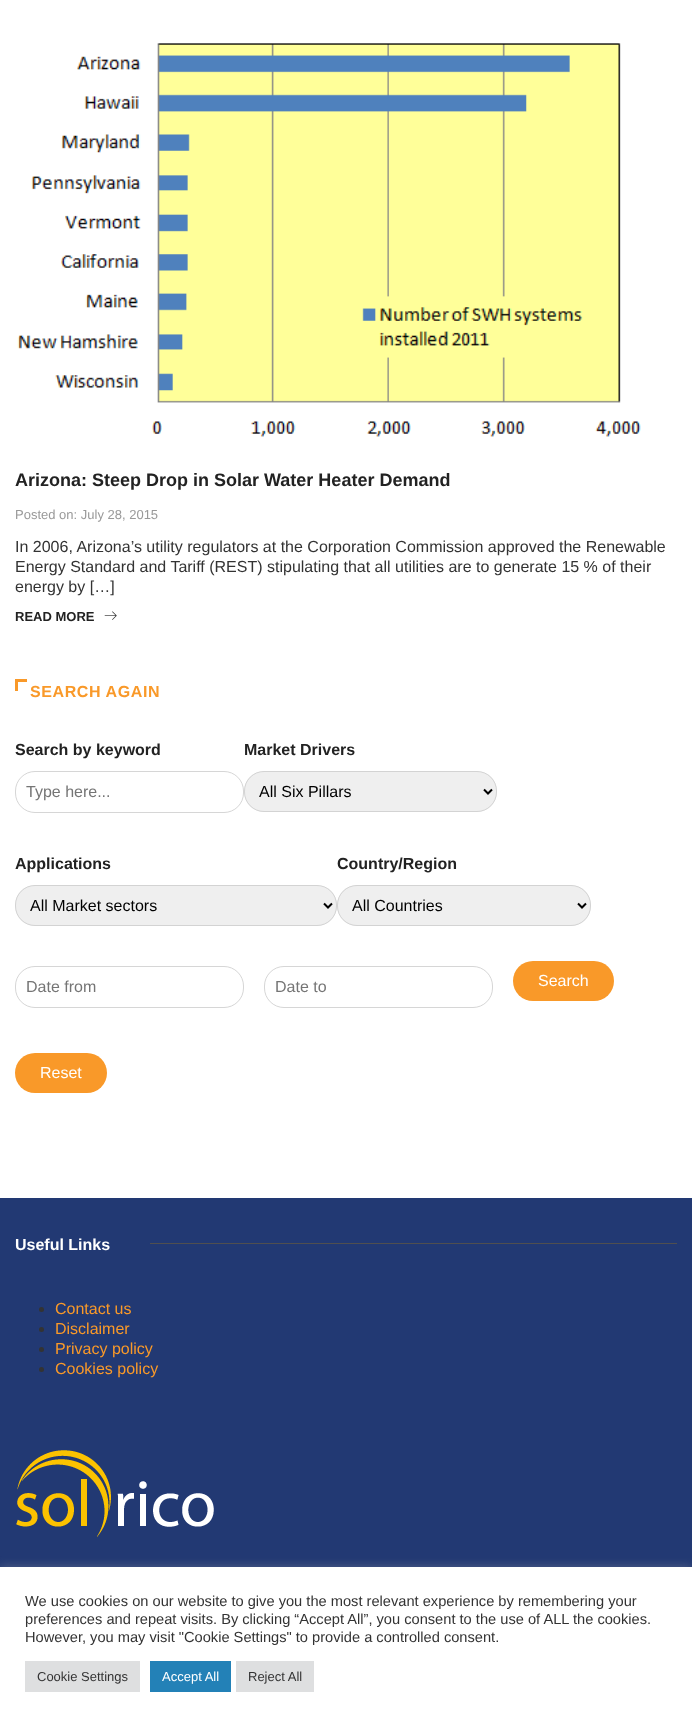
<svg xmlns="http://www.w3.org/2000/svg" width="692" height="1722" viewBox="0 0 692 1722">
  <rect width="100%" height="100%" fill="rgb(255,255,255)"/>
  <image x="17" y="43" width="624" height="394" href="pic1.png"/>
  <text x="15" y="486" font-family="Liberation Sans" font-size="18" font-weight="bold" fill="rgb(34,34,34)">Arizona: Steep Drop in Solar Water Heater Demand</text>
  <text x="15" y="519" font-family="Liberation Sans" font-size="13" fill="rgb(153,153,153)">Posted on: July 28, 2015</text>
  <g font-family="Liberation Sans" font-size="16" fill="rgb(51,51,51)">
    <text>
      <tspan x="15" y="552">In 2006, Arizona’s utility regulators at the Corporation Commission approved the Renewable</tspan>
      <tspan x="15" y="572">Energy Standard and Tariff (REST) stipulating that all utilities are to generate 15 % of their</tspan>
      <tspan x="15" y="592">energy by […]</tspan>
    </text>
  </g>
  <text x="15" y="621" font-family="Liberation Sans" font-size="13" font-weight="bold" fill="rgb(34,34,34)">READ MORE</text>
  <image x="104" y="611" width="13" height="9" href="pic2.png"/>
  <rect x="15" y="679" width="3" height="12" fill="rgb(249,153,41)"/>
  <rect x="15" y="679" width="12" height="3" fill="rgb(249,153,41)"/>
  <text x="30" y="697" font-family="Liberation Sans" font-size="16" font-weight="bold" letter-spacing="0.6" fill="rgb(249,153,41)">SEARCH AGAIN</text>
  <text x="15" y="755" font-family="Liberation Sans" font-size="16" font-weight="bold" fill="rgb(34,34,34)">Search by keyword</text>
  <rect x="15.5" y="771.5" width="228" height="41" rx="19.5" fill="none" stroke="rgb(214,214,214)"/>
  <text x="26" y="797" font-family="Liberation Sans" font-size="16" fill="rgb(117,117,117)">Type here...</text>
  <text x="244" y="755" font-family="Liberation Sans" font-size="16" font-weight="bold" fill="rgb(34,34,34)">Market Drivers</text>
  <rect x="244" y="771" width="253" height="41" rx="20" fill="rgb(239,239,239)"/>
  <rect x="244.5" y="771.5" width="252" height="40" rx="19.5" fill="none" stroke="rgba(204,204,204,0.8)"/>
  <path d="M484 789.5L488 793.5L492 789.5" fill="none" stroke="rgb(0,0,0)" stroke-width="2"/>
  <text x="259" y="797" font-family="Liberation Sans" font-size="16" fill="rgb(0,0,0)">All Six Pillars</text>
  <text x="15" y="869" font-family="Liberation Sans" font-size="16" font-weight="bold" fill="rgb(34,34,34)">Applications</text>
  <rect x="15" y="885" width="322" height="41" rx="20" fill="rgb(239,239,239)"/>
  <rect x="15.5" y="885.5" width="321" height="40" rx="19.5" fill="none" stroke="rgba(204,204,204,0.8)"/>
  <path d="M324 903.5L328 907.5L332 903.5" fill="none" stroke="rgb(0,0,0)" stroke-width="2"/>
  <text x="30" y="911" font-family="Liberation Sans" font-size="16" fill="rgb(0,0,0)">All Market sectors</text>
  <text x="337" y="869" font-family="Liberation Sans" font-size="16" font-weight="bold" fill="rgb(34,34,34)">Country/Region</text>
  <rect x="337" y="885" width="254" height="41" rx="20" fill="rgb(239,239,239)"/>
  <rect x="337.5" y="885.5" width="253" height="40" rx="19.5" fill="none" stroke="rgba(204,204,204,0.8)"/>
  <path d="M578 903.5L582 907.5L586 903.5" fill="none" stroke="rgb(0,0,0)" stroke-width="2"/>
  <text x="352" y="911" font-family="Liberation Sans" font-size="16" fill="rgb(0,0,0)">All Countries</text>
  <rect x="15.5" y="966.5" width="228" height="41" rx="19.5" fill="none" stroke="rgb(214,214,214)"/>
  <text x="26" y="992" font-family="Liberation Sans" font-size="16" fill="rgb(117,117,117)">Date from</text>
  <rect x="264.5" y="966.5" width="228" height="41" rx="19.5" fill="none" stroke="rgb(214,214,214)"/>
  <text x="275" y="992" font-family="Liberation Sans" font-size="16" fill="rgb(117,117,117)">Date to</text>
  <rect x="513" y="961" width="101" height="40" rx="20" fill="rgb(249,153,41)"/>
  <text x="538" y="986" font-family="Liberation Sans" font-size="16" fill="rgb(255,255,255)">Search</text>
  <rect x="15" y="1053" width="92" height="40" rx="20" fill="rgb(249,153,41)"/>
  <text x="40" y="1078" font-family="Liberation Sans" font-size="16" fill="rgb(255,255,255)">Reset</text>
  <rect x="0" y="1198" width="692" height="369" fill="rgb(34,57,115)"/>
  <text x="15" y="1250" font-family="Liberation Sans" font-size="16" font-weight="bold" fill="rgb(255,255,255)">Useful Links</text>
  <rect x="150" y="1243" width="527" height="1" fill="rgb(80,79,79)"/>
  <circle cx="41.5" cy="1309.5" r="2.5" fill="rgb(51,51,51)"/>
  <text x="55" y="1314" font-family="Liberation Sans" font-size="16" fill="rgb(249,153,41)">Contact us</text>
  <circle cx="41.5" cy="1329.5" r="2.5" fill="rgb(51,51,51)"/>
  <text x="55" y="1334" font-family="Liberation Sans" font-size="16" fill="rgb(249,153,41)">Disclaimer</text>
  <circle cx="41.5" cy="1349.5" r="2.5" fill="rgb(51,51,51)"/>
  <text x="55" y="1354" font-family="Liberation Sans" font-size="16" fill="rgb(249,153,41)">Privacy policy</text>
  <circle cx="41.5" cy="1369.5" r="2.5" fill="rgb(51,51,51)"/>
  <text x="55" y="1374" font-family="Liberation Sans" font-size="16" fill="rgb(249,153,41)">Cookies policy</text>
  <image x="16" y="1450" width="198" height="87" href="pic3.png"/>
  <rect x="0" y="1566" width="692" height="155" fill="rgba(172,171,171,0.3)" filter="blur(5px)"/>
  <rect x="0" y="1567" width="692" height="155" fill="rgb(255,255,255)"/>
  <g font-family="Liberation Sans" font-size="14.65" fill="rgb(51,51,51)">
    <text>
      <tspan x="25" y="1606">We use cookies on our website to give you the most relevant experience by remembering your</tspan>
      <tspan x="25" y="1624">preferences and repeat visits. By clicking “Accept All”, you consent to the use of ALL the cookies.</tspan>
      <tspan x="25" y="1642">However, you may visit "Cookie Settings" to provide a controlled consent.</tspan>
    </text>
  </g>
  <rect x="25" y="1661" width="115" height="31" fill="rgb(222,223,224)"/>
  <text x="37" y="1681" font-family="Liberation Sans" font-size="13" fill="rgb(51,51,51)">Cookie Settings</text>
  <rect x="150" y="1661" width="81" height="31" fill="rgb(35,129,183)"/>
  <text x="162" y="1681" font-family="Liberation Sans" font-size="13" fill="rgb(255,255,255)">Accept All</text>
  <rect x="236" y="1661" width="78" height="31" fill="rgb(222,223,224)"/>
  <text x="248" y="1681" font-family="Liberation Sans" font-size="13" fill="rgb(51,51,51)">Reject All</text>
</svg>
